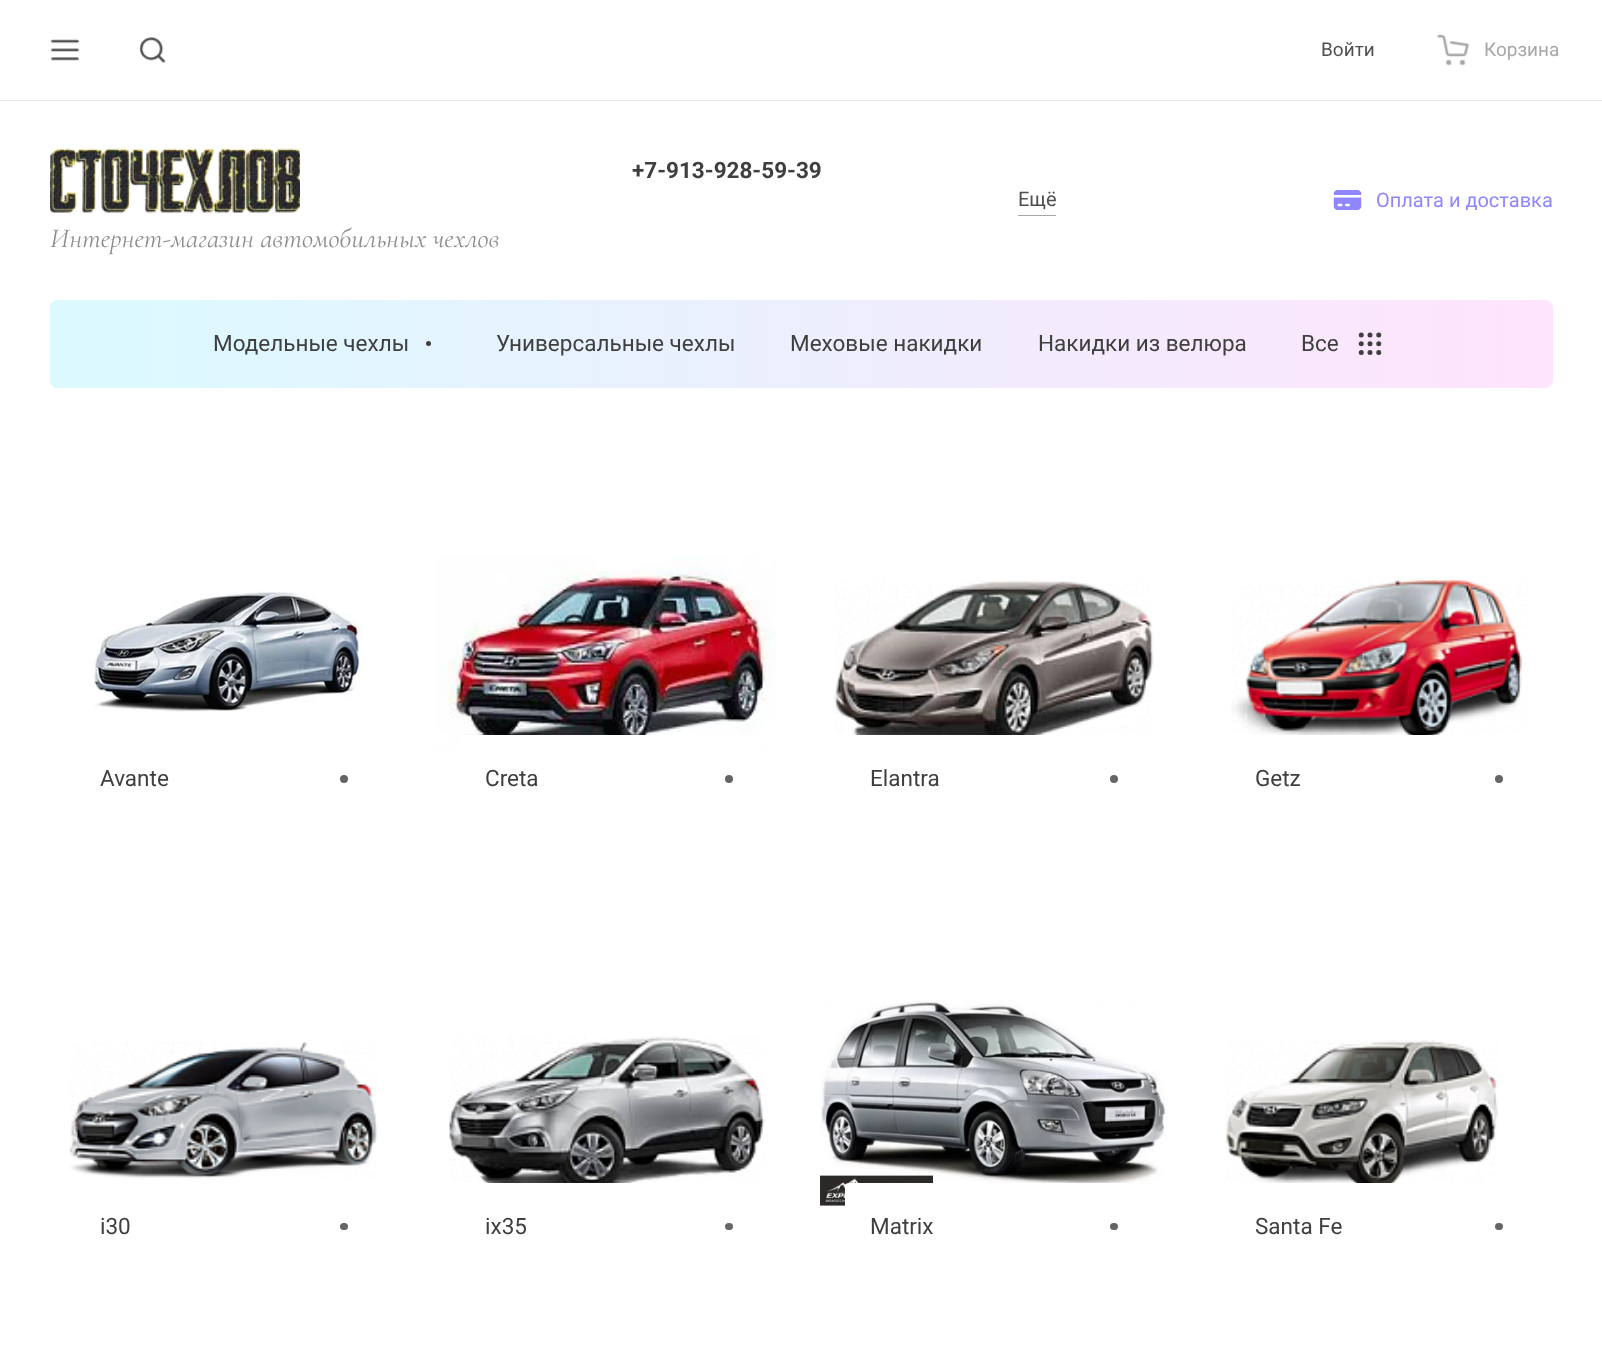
<svg xmlns="http://www.w3.org/2000/svg" width="1602" height="1358" viewBox="0 0 1602 1358">
  <defs>
    <linearGradient id="g1" gradientUnits="userSpaceOnUse" x1="50" y1="344" x2="1553" y2="344"><stop offset="0.04" stop-color="rgb(220,249,255)"/><stop offset="1" stop-color="rgb(220,249,255)" stop-opacity="0"/></linearGradient>
  </defs>
  <rect width="100%" height="100%" fill="rgb(255,255,255)"/>
  <path d="M0 100V101H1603V1H1602V100Z" fill="rgb(230,230,230)"/>
  <image x="51" y="39" width="29" height="22" href="pic1.png"/>
  <image x="139" y="37" width="27" height="27" href="pic2.png"/>
  <text x="1321" y="56" font-family="Roboto" font-size="19" fill="rgb(79,79,79)">Войти</text>
  <image x="1437" y="34" width="33" height="32" href="pic3.png"/>
  <text x="1484" y="56" font-family="Roboto" font-size="19" fill="rgb(167,167,167)">Корзина</text>
  <text x="632" y="178" font-family="Roboto" font-size="22.5" font-weight="bold" fill="rgb(63,63,63)">+7-913-928-59-39</text>
  <rect x="1018" y="215" width="38" height="1" fill="rgb(167,167,167)"/>
  <text x="1018" y="206" font-family="Roboto" font-size="20" fill="rgb(79,79,79)">Ещё</text>
  <image x="1333" y="190" width="29" height="20" href="pic4.png"/>
  <text x="1376" y="207" font-family="Roboto" font-size="20" fill="rgb(144,134,255)">Оплата и доставка</text>
  <image x="50" y="148" width="250" height="65" href="pic5.png"/>
  <text x="50" y="247" font-family="Cormorant" font-size="27.5" font-style="italic" fill="rgb(140,140,140)">Интернет-магазин автомобильных чехлов</text>
  <rect x="50" y="300" width="1503" height="88" rx="8" fill="rgb(255,228,252)"/>
  <rect x="50" y="300" width="1503" height="88" rx="8" fill="url(#g1)"/>
  <text x="213" y="351" font-family="Roboto" font-size="22.5" fill="rgb(63,63,63)">Модельные чехлы</text>
  <circle cx="428.5" cy="343.5" r="2.5" fill="rgb(63,63,63)"/>
  <g font-family="Roboto" font-size="22.5" fill="rgb(63,63,63)">
    <text x="496" y="351">Универсальные чехлы</text>
    <text x="790" y="351">Меховые накидки</text>
    <text x="1038" y="351">Накидки из велюра</text>
    <text x="1301" y="351">Все</text>
  </g>
  <image x="1358" y="332" width="24" height="23" href="pic6.png"/>
  <image x="93" y="591" width="269" height="122" href="pic7.png"/>
  <text x="100" y="786" font-family="Roboto" font-size="22.5" fill="rgb(63,63,63)">Avante</text>
  <circle cx="344" cy="779" r="4" fill="rgb(101,101,101)"/>
  <image x="435" y="556" width="341" height="199" href="pic8.png"/>
  <rect x="460" y="735" width="298" height="88" rx="4" fill="rgb(255,255,255)"/>
  <text x="485" y="786" font-family="Roboto" font-size="22.5" fill="rgb(63,63,63)">Creta</text>
  <circle cx="729" cy="779" r="4" fill="rgb(101,101,101)"/>
  <image x="834" y="580" width="320" height="155" href="pic9.png"/>
  <text x="870" y="786" font-family="Roboto" font-size="22.5" fill="rgb(63,63,63)">Elantra</text>
  <circle cx="1114" cy="779" r="4" fill="rgb(101,101,101)"/>
  <image x="1231" y="580" width="297" height="155" href="pic10.png"/>
  <text x="1255" y="786" font-family="Roboto" font-size="22.5" fill="rgb(63,63,63)">Getz</text>
  <circle cx="1499" cy="779" r="4" fill="rgb(101,101,101)"/>
  <image x="69" y="1042" width="309" height="137" href="pic11.png"/>
  <text x="100" y="1234" font-family="Roboto" font-size="22.5" fill="rgb(63,63,63)">i30</text>
  <rect x="340" y="1223" width="8" height="7" rx="3.5" fill="rgb(101,101,101)"/>
  <image x="449" y="1036" width="316" height="147" href="pic12.png"/>
  <text x="485" y="1234" font-family="Roboto" font-size="22.5" fill="rgb(63,63,63)">ix35</text>
  <rect x="725" y="1223" width="8" height="7" rx="3.5" fill="rgb(101,101,101)"/>
  <image x="820" y="1000" width="346" height="207" href="pic13.png"/>
  <rect x="845" y="1183" width="298" height="87" rx="4" fill="rgb(255,255,255)"/>
  <text x="870" y="1234" font-family="Roboto" font-size="22.5" fill="rgb(63,63,63)">Matrix</text>
  <rect x="1110" y="1223" width="8" height="7" rx="3.5" fill="rgb(101,101,101)"/>
  <image x="1226" y="1040" width="273" height="143" href="pic14.png"/>
  <text x="1255" y="1234" font-family="Roboto" font-size="22.5" fill="rgb(63,63,63)">Santa Fe</text>
  <rect x="1495" y="1223" width="8" height="7" rx="3.5" fill="rgb(101,101,101)"/>
</svg>
